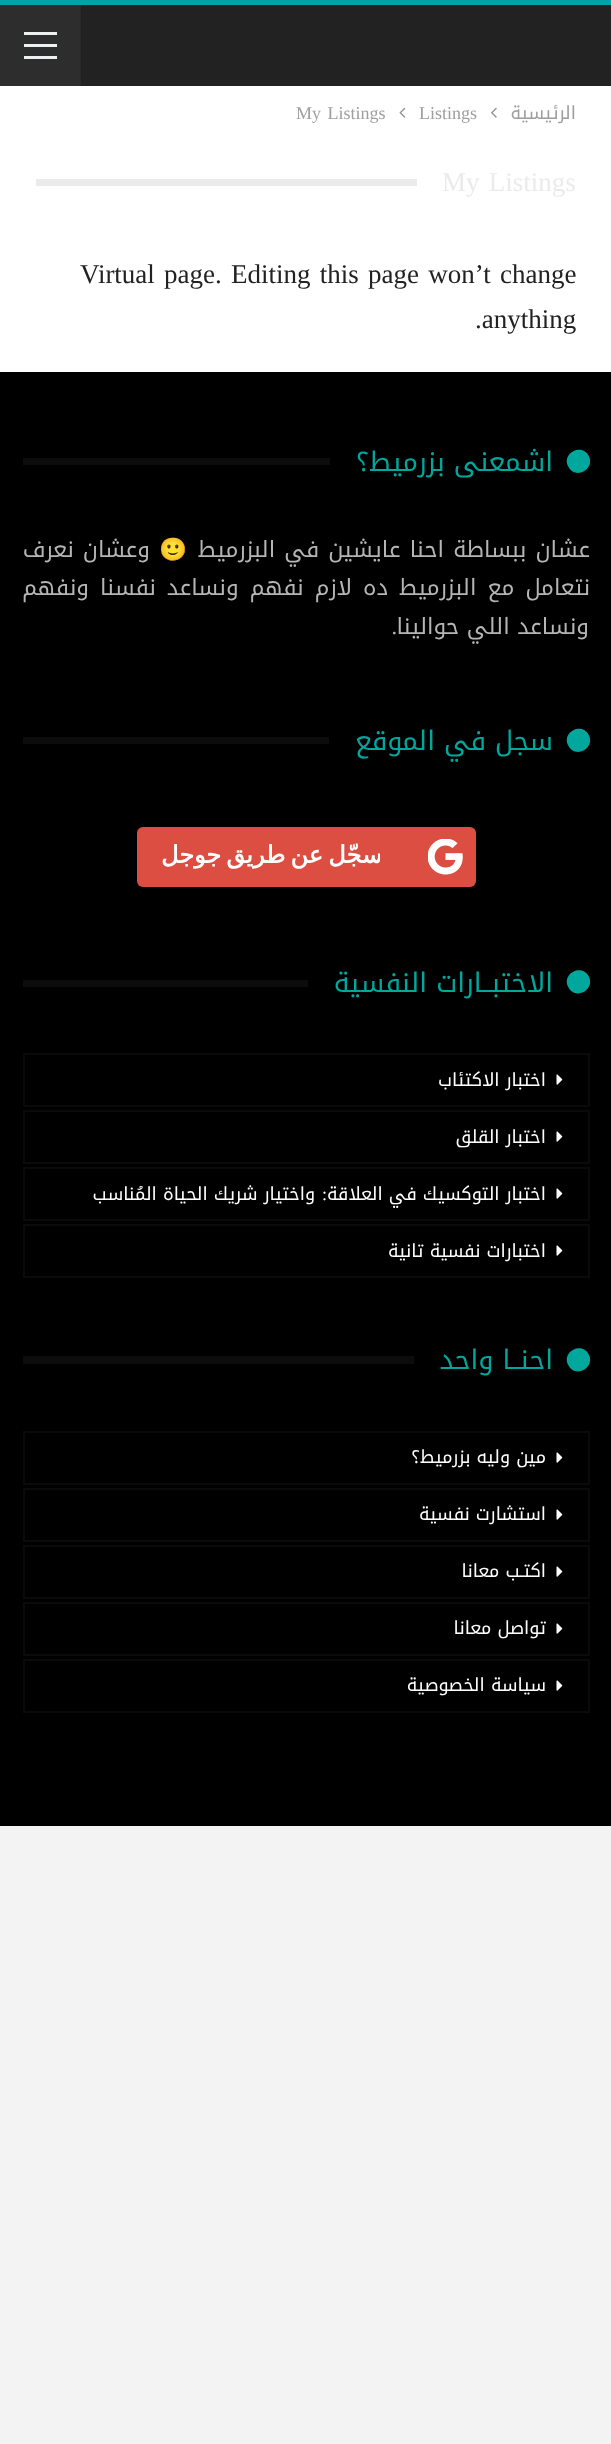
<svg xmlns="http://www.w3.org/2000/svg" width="611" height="2444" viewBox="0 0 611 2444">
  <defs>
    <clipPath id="clip1"><rect x="155" y="827" width="225" height="60"/></clipPath>
  </defs>
  <rect width="100%" height="100%" fill="rgb(243,243,243)"/>
  <rect x="0" y="0" width="611" height="5" fill="rgb(0,165,162)"/>
  <rect x="0" y="86" width="611" height="286" fill="rgb(255,255,255)"/>
  <rect x="82" y="5" width="529" height="81" fill="rgb(34,34,34)"/>
  <rect x="81" y="5" width="1" height="81" fill="rgb(32,32,32)"/>
  <rect x="0" y="5" width="80" height="81" fill="rgb(45,45,45)"/>
  <rect x="80" y="5" width="1" height="81" fill="rgb(42,42,42)"/>
  <rect x="24" y="44" width="33" height="3" fill="rgb(236,240,241)"/>
  <rect x="24" y="32" width="33" height="3" fill="rgb(236,240,241)"/>
  <rect x="24" y="56" width="33" height="3" fill="rgb(236,240,241)"/>
  <text x="576" y="119" font-family="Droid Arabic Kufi" font-size="18" direction="rtl" fill="rgb(158,158,158)">الرئيسية</text>
  <image x="491" y="107" width="6" height="11" href="pic1.png"/>
  <text x="419" y="119" font-family="Liberation Serif" font-size="18" fill="rgb(158,158,158)">Listings</text>
  <image x="399" y="107" width="7" height="11" href="pic2.png"/>
  <text x="296" y="119" word-spacing="2" font-family="Liberation Serif" font-size="18" fill="rgb(158,158,158)">My Listings</text>
  <text x="442" y="191" word-spacing="2.5" font-family="Liberation Serif" font-size="27" fill="rgb(235,235,235)">My Listings</text>
  <rect x="36" y="179" width="381" height="7" fill="rgb(235,235,235)"/>
  <g font-family="Liberation Serif" font-size="27" fill="rgb(34,34,34)">
    <text x="80" y="283" word-spacing="2.5">Virtual page. Editing this page won’t change</text>
    <text x="475" y="328">.anything</text>
  </g>
  <rect x="0" y="372" width="611" height="1454" fill="rgb(0,0,0)"/>
  <path d="M588.5 455.5C596 468.5 576 480.5 568.5 467C561 454 581 442.5 588.5 455.5Z" fill="rgb(0,167,157)"/>
  <text x="553" y="471" font-family="Droid Arabic Kufi" font-size="27" direction="rtl" fill="rgb(0,167,157)">اشمعنى بزرميط؟</text>
  <rect x="23" y="458" width="307" height="7" fill="rgb(12,12,12)"/>
  <text x="590" y="557" word-spacing="1.5" font-family="Droid Arabic Kufi" font-size="22.5" direction="rtl" fill="rgb(181,181,181)">عشان ببساطة احنا عايشين في البزرميط</text>
  <text x="187" y="557" font-family="Noto Color Emoji" font-size="22.5" direction="rtl" fill="rgb(181,181,181)">🙂</text>
  <g font-family="Droid Arabic Kufi" font-size="22.5" direction="rtl" fill="rgb(181,181,181)">
    <text x="150" y="557" word-spacing="1.5">وعشان نعرف</text>
    <text x="590" y="595" word-spacing="3.5">نتعامل مع البزرميط ده لازم نفهم ونساعد نفسنا ونفهم</text>
    <text x="589" y="634">ونساعد اللي حوالينا</text>
  </g>
  <text x="397" y="634" font-family="Liberation Serif" font-size="22.5" direction="rtl" fill="rgb(181,181,181)">.</text>
  <path d="M588.5 734.5C596 747.5 576 759.5 568.5 746C561 733 581 721.5 588.5 734.5Z" fill="rgb(0,167,157)"/>
  <text x="553" y="750" font-family="Droid Arabic Kufi" font-size="27" direction="rtl" fill="rgb(0,167,157)">سجل في الموقع</text>
  <rect x="23" y="737" width="306" height="7" fill="rgb(12,12,12)"/>
  <rect x="137" y="827" width="339" height="60" rx="6" fill="rgb(220,78,65)"/>
  <image x="428" y="839" width="35" height="36" href="pic3.png"/>
  <g clip-path="url(#clip1)">
    <text x="382" y="863" word-spacing="-2.5" font-family="DejaVu Sans" font-size="24" font-weight="bold" letter-spacing="0.4" direction="rtl" fill="rgb(255,255,255)">سجّل عن طريق جوجل</text>
  </g>
  <path d="M588.5 976C596 989 576 1001 568.5 987.5C561 974.5 581 963 588.5 976Z" fill="rgb(0,167,157)"/>
  <text x="553" y="992" font-family="Droid Arabic Kufi" font-size="27" direction="rtl" fill="rgb(0,167,157)">الاختبــارات النفسية</text>
  <rect x="23" y="980" width="285" height="7" fill="rgb(12,12,12)"/>
  <rect x="24" y="1054" width="565" height="52" fill="none" stroke="rgb(10,10,10)" stroke-width="2"/>
  <image x="556" y="1074" width="7" height="11" href="pic4.png"/>
  <text x="546" y="1086" font-family="Droid Arabic Kufi" font-size="18" direction="rtl" fill="rgb(255,255,255)">اختبار الاكتئاب</text>
  <rect x="24" y="1111" width="565" height="52" fill="none" stroke="rgb(10,10,10)" stroke-width="2"/>
  <image x="556" y="1131" width="7" height="11" href="pic4.png"/>
  <text x="546" y="1143" font-family="Droid Arabic Kufi" font-size="18" direction="rtl" fill="rgb(255,255,255)">اختبار القلق</text>
  <rect x="24" y="1168" width="565" height="52" fill="none" stroke="rgb(10,10,10)" stroke-width="2"/>
  <image x="556" y="1188" width="7" height="11" href="pic4.png"/>
  <text x="546" y="1200" font-family="Droid Arabic Kufi" font-size="18" direction="rtl" fill="rgb(255,255,255)">اختبار التوكسيك في العلاقة</text>
  <text x="327" y="1200" font-family="Liberation Serif" font-size="18" direction="rtl" fill="rgb(255,255,255)">:</text>
  <text x="315" y="1200" font-family="Droid Arabic Kufi" font-size="18" direction="rtl" fill="rgb(255,255,255)">واختيار شريك الحياة المُناسب</text>
  <rect x="24" y="1225" width="565" height="52" fill="none" stroke="rgb(10,10,10)" stroke-width="2"/>
  <image x="556" y="1245" width="7" height="11" href="pic4.png"/>
  <text x="546" y="1257" font-family="Droid Arabic Kufi" font-size="18" direction="rtl" fill="rgb(255,255,255)">اختبارات نفسية تانية</text>
  <path d="M588.5 1354C596 1367 576 1379 568.5 1365.5C561 1352.5 581 1341 588.5 1354Z" fill="rgb(0,167,157)"/>
  <text x="553" y="1369" font-family="Droid Arabic Kufi" font-size="27" direction="rtl" fill="rgb(0,167,157)">احنــا واحد</text>
  <rect x="23" y="1356" width="391" height="8" fill="rgb(12,12,12)"/>
  <rect x="24" y="1432" width="565" height="52" fill="none" stroke="rgb(10,10,10)" stroke-width="2"/>
  <image x="556" y="1452" width="7" height="11" href="pic4.png"/>
  <text x="546" y="1463" font-family="Droid Arabic Kufi" font-size="18" direction="rtl" fill="rgb(255,255,255)">مين وليه بزرميط؟</text>
  <rect x="24" y="1489" width="565" height="52" fill="none" stroke="rgb(10,10,10)" stroke-width="2"/>
  <image x="556" y="1509" width="7" height="11" href="pic4.png"/>
  <text x="546" y="1520" font-family="Droid Arabic Kufi" font-size="18" direction="rtl" fill="rgb(255,255,255)">استشارت نفسية</text>
  <rect x="24" y="1546" width="565" height="52" fill="none" stroke="rgb(10,10,10)" stroke-width="2"/>
  <image x="556" y="1566" width="7" height="11" href="pic4.png"/>
  <text x="546" y="1577" font-family="Droid Arabic Kufi" font-size="18" direction="rtl" fill="rgb(255,255,255)">اكتـب معانا</text>
  <rect x="24" y="1603" width="565" height="52" fill="none" stroke="rgb(10,10,10)" stroke-width="2"/>
  <image x="556" y="1623" width="7" height="11" href="pic4.png"/>
  <text x="546" y="1634" font-family="Droid Arabic Kufi" font-size="18" direction="rtl" fill="rgb(255,255,255)">تواصل معانا</text>
  <rect x="24" y="1660" width="565" height="52" fill="none" stroke="rgb(10,10,10)" stroke-width="2"/>
  <image x="556" y="1680" width="7" height="11" href="pic4.png"/>
  <text x="546" y="1691" font-family="Droid Arabic Kufi" font-size="18" direction="rtl" fill="rgb(255,255,255)">سياسة الخصوصية</text>
</svg>
